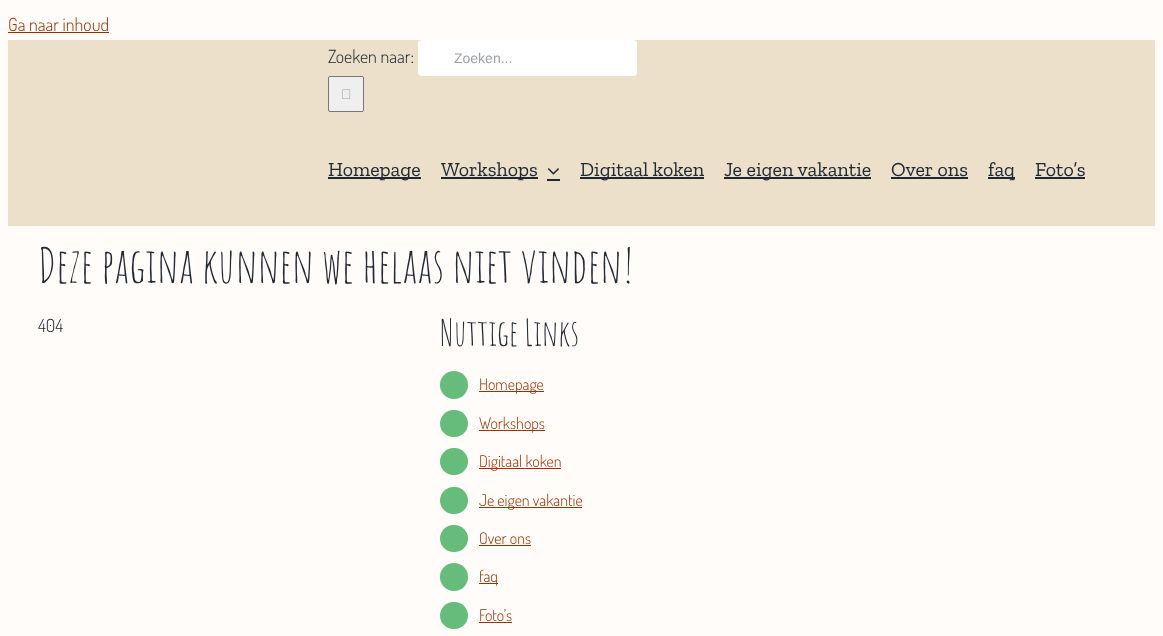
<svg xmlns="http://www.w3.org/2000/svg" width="1163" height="636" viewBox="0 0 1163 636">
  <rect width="100%" height="100%" fill="rgb(255,252,249)"/>
  <text x="8" y="31" font-family="Dosis" font-size="18" font-weight="300" fill="rgb(152,50,0)">Ga naar inhoud</text>
  <rect x="8" y="32" width="101" height="1" fill="rgb(152,50,0)"/>
  <rect x="8" y="40" width="1147" height="186" fill="rgb(236,224,202)"/>
  <text x="328" y="63" font-family="Dosis" font-size="18" font-weight="300" fill="rgb(32,40,52)">Zoeken naar:</text>
  <rect x="418" y="40" width="219" height="36" rx="4" fill="rgb(255,255,255)"/>
  <text x="454" y="63" font-family="Liberation Sans" font-size="14" fill="rgb(158,160,164)">Zoeken...</text>
  <rect x="328.5" y="76.5" width="35" height="35" rx="1.5" fill="rgb(239,239,239)" stroke="rgb(118,118,118)"/>
  <image x="342" y="89" width="9" height="10" href="pic1.png"/>
  <rect x="328" y="177" width="93" height="2" fill="rgb(32,40,52)"/>
  <text x="328" y="176" font-family="Zilla Slab" font-size="20" fill="rgb(32,40,52)">Homepage</text>
  <rect x="441" y="177" width="97" height="2" fill="rgb(32,40,52)"/>
  <text x="441" y="176" font-family="Zilla Slab" font-size="20" fill="rgb(32,40,52)">Workshops</text>
  <image x="547" y="168" width="12" height="7" href="pic2.png"/>
  <rect x="547" y="179" width="13" height="2" fill="rgb(32,40,52)"/>
  <rect x="580" y="177" width="124" height="2" fill="rgb(32,40,52)"/>
  <text x="580" y="176" font-family="Zilla Slab" font-size="20" fill="rgb(32,40,52)">Digitaal koken</text>
  <rect x="724" y="177" width="147" height="2" fill="rgb(32,40,52)"/>
  <g font-family="Zilla Slab" font-size="20" fill="rgb(32,40,52)">
    <text x="724" y="176">Je eigen vakantie</text>
    <text x="891" y="176">Over ons</text>
  </g>
  <rect x="891" y="177" width="77" height="2" fill="rgb(32,40,52)"/>
  <rect x="988" y="177" width="27" height="2" fill="rgb(32,40,52)"/>
  <g font-family="Zilla Slab" font-size="20" fill="rgb(32,40,52)">
    <text x="988" y="176">faq</text>
    <text x="1035" y="176">Foto’s</text>
  </g>
  <rect x="1035" y="177" width="50" height="2" fill="rgb(32,40,52)"/>
  <text x="38" y="283" font-family="Amatic SC" font-size="48" fill="rgb(32,40,52)">Deze pagina kunnen we helaas niet vinden!</text>
  <text x="38" y="332" font-family="Dosis" font-size="18" font-weight="300" fill="rgb(32,40,52)">404</text>
  <text x="440" y="346" font-family="Amatic SC" font-size="36" fill="rgb(32,40,52)">Nuttige Links</text>
  <circle cx="454" cy="385" r="14" fill="rgb(101,188,123)"/>
  <rect x="479" y="391" width="65" height="1" fill="rgb(152,50,0)"/>
  <text x="479" y="390" font-family="Dosis" font-size="16" font-weight="300" fill="rgb(152,50,0)">Homepage</text>
  <rect x="440" y="410" width="28" height="27" rx="13.5" fill="rgb(101,188,123)"/>
  <rect x="479" y="430" width="66" height="1" fill="rgb(152,50,0)"/>
  <text x="479" y="429" font-family="Dosis" font-size="16" font-weight="300" fill="rgb(152,50,0)">Workshops</text>
  <rect x="440" y="448" width="28" height="27" rx="13.5" fill="rgb(101,188,123)"/>
  <rect x="479" y="468" width="82" height="1" fill="rgb(152,50,0)"/>
  <text x="479" y="467" font-family="Dosis" font-size="16" font-weight="300" fill="rgb(152,50,0)">Digitaal koken</text>
  <rect x="440" y="487" width="28" height="27" rx="13.5" fill="rgb(101,188,123)"/>
  <rect x="479" y="507" width="103" height="1" fill="rgb(152,50,0)"/>
  <text x="479" y="506" font-family="Dosis" font-size="16" font-weight="300" fill="rgb(152,50,0)">Je eigen vakantie</text>
  <rect x="440" y="525" width="28" height="27" rx="13.5" fill="rgb(101,188,123)"/>
  <text x="479" y="544" font-family="Dosis" font-size="16" font-weight="300" fill="rgb(152,50,0)">Over ons</text>
  <rect x="479" y="545" width="52" height="1" fill="rgb(152,50,0)"/>
  <circle cx="454" cy="577" r="14" fill="rgb(101,188,123)"/>
  <rect x="479" y="583" width="19" height="1" fill="rgb(152,50,0)"/>
  <text x="479" y="582" font-family="Dosis" font-size="16" font-weight="300" fill="rgb(152,50,0)">faq</text>
  <rect x="440" y="602" width="28" height="27" rx="13.5" fill="rgb(101,188,123)"/>
  <text x="479" y="621" font-family="Dosis" font-size="16" font-weight="300" fill="rgb(152,50,0)">Foto’s</text>
  <rect x="479" y="622" width="33" height="1" fill="rgb(152,50,0)"/>
</svg>
